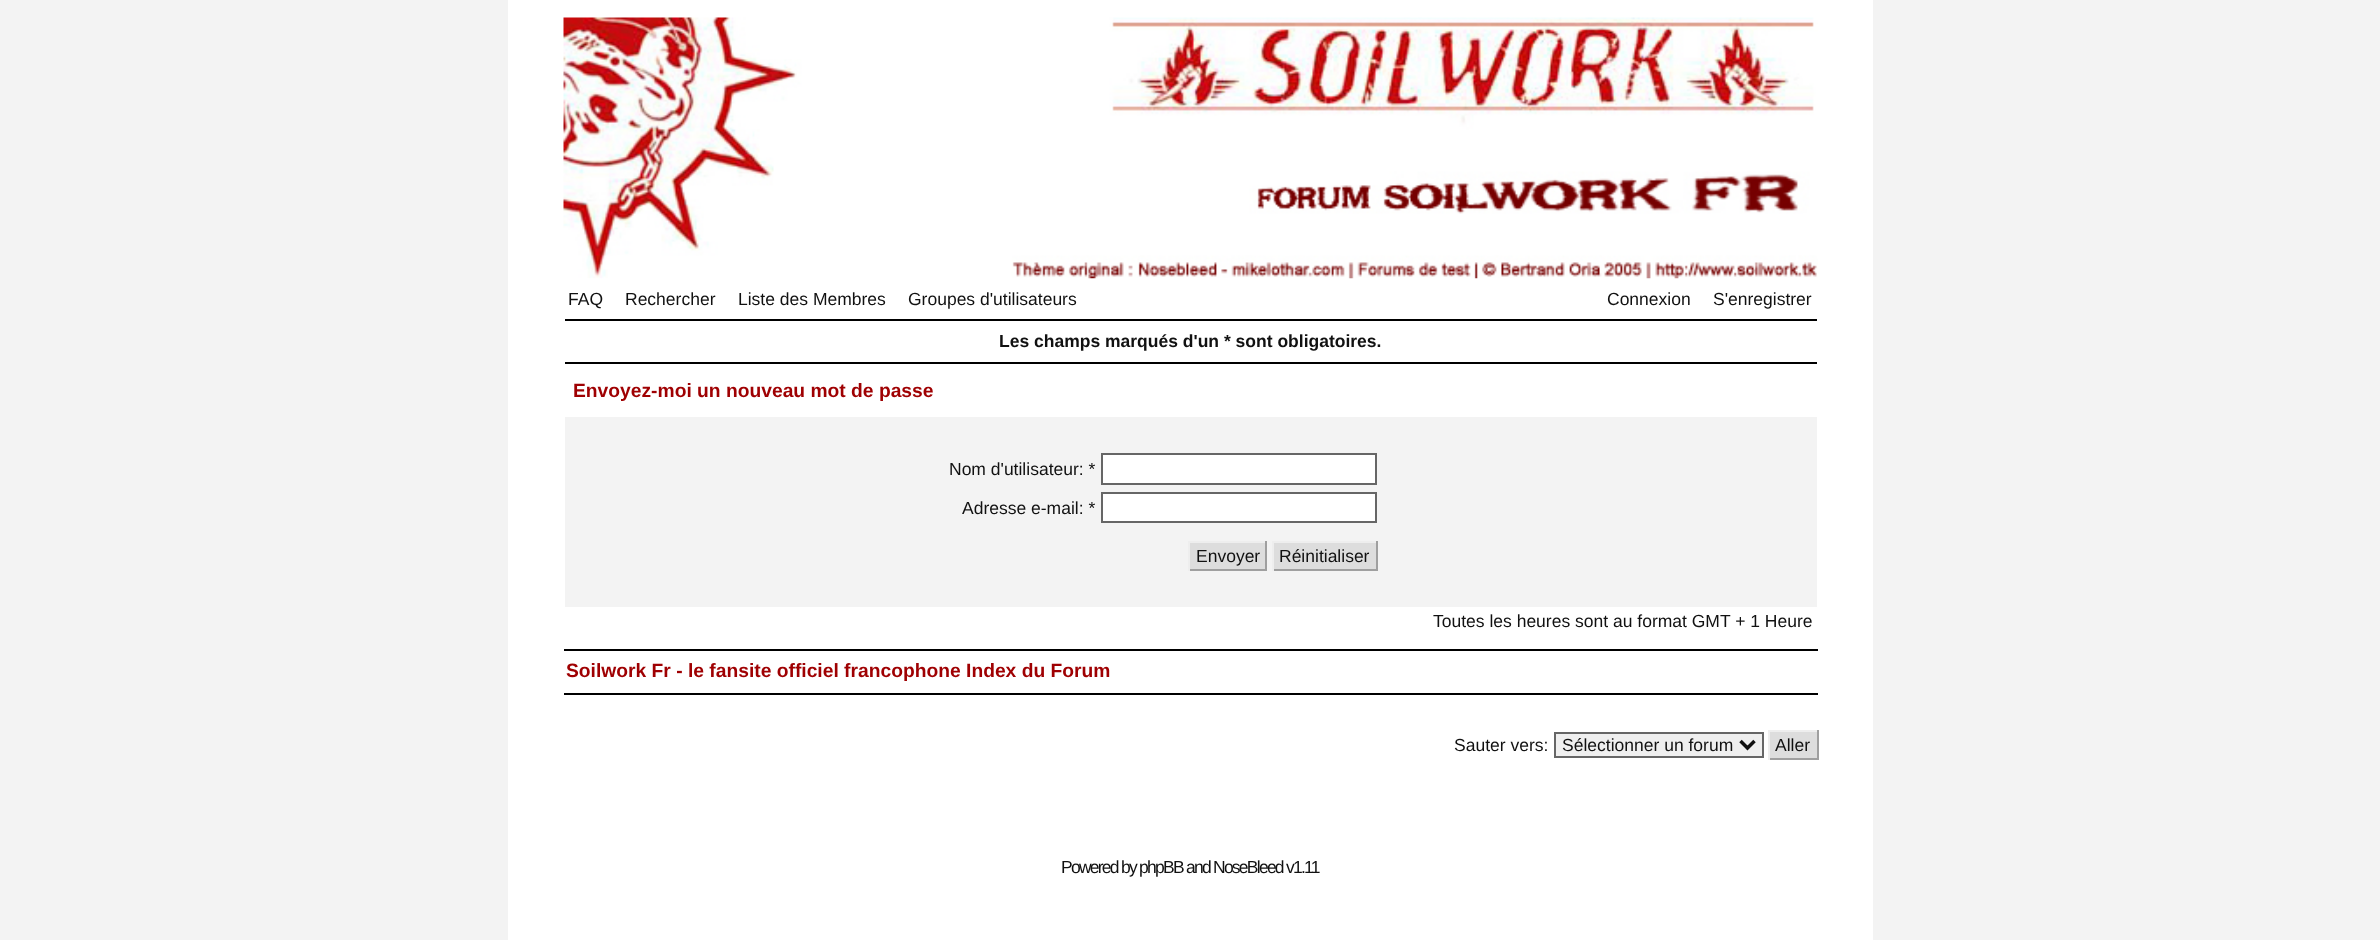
<svg xmlns="http://www.w3.org/2000/svg" width="2380" height="940" viewBox="0 0 2380 940">
  <rect width="100%" height="100%" fill="rgb(243,243,243)"/>
  <rect x="508" y="0" width="1365" height="940" fill="rgb(255,255,255)"/>
  <image x="563" y="17" width="1255" height="262" href="pic1.png"/>
  <g font-family="Liberation Sans" font-size="17.5" fill="rgb(17,17,17)">
    <text x="568" y="305">FAQ</text>
    <text x="625" y="305">Rechercher</text>
    <text x="738" y="305">Liste des Membres</text>
    <text x="908" y="305">Groupes d'utilisateurs</text>
    <text x="1607" y="305">Connexion</text>
    <text x="1713" y="305">S'enregistrer</text>
  </g>
  <rect x="565" y="319" width="1252" height="2" fill="rgb(0,0,0)"/>
  <rect x="565" y="362" width="1252" height="2" fill="rgb(0,0,0)"/>
  <text x="999" y="347" font-family="Liberation Sans" font-size="17.5" font-weight="bold" fill="rgb(17,17,17)">Les champs marqués d'un * sont obligatoires.</text>
  <text x="573" y="397" font-family="Liberation Sans" font-size="19.25" font-weight="bold" fill="rgb(159,0,2)">Envoyez-moi un nouveau mot de passe</text>
  <rect x="565" y="417" width="1252" height="190" fill="rgb(243,243,243)"/>
  <text x="949" y="475" font-family="Liberation Sans" font-size="17.5" fill="rgb(17,17,17)">Nom d'utilisateur: *</text>
  <rect x="1102" y="454" width="274" height="30" fill="rgb(255,255,255)" stroke="rgb(102,102,102)" stroke-width="2"/>
  <text x="962" y="514" font-family="Liberation Sans" font-size="17.5" fill="rgb(17,17,17)">Adresse e-mail: *</text>
  <rect x="1102" y="493" width="274" height="29" fill="rgb(255,255,255)" stroke="rgb(102,102,102)" stroke-width="2"/>
  <rect x="1190" y="543" width="75" height="26" fill="rgb(221,221,221)"/>
  <rect x="1188" y="541" width="79" height="2" fill="rgb(238,238,238)"/>
  <rect x="1265" y="541" width="2" height="30" fill="rgb(159,159,159)"/>
  <rect x="1188" y="569" width="79" height="2" fill="rgb(159,159,159)"/>
  <rect x="1188" y="541" width="2" height="30" fill="rgb(238,238,238)"/>
  <text x="1196" y="562" font-family="Liberation Sans" font-size="17.5" fill="rgb(17,17,17)">Envoyer</text>
  <rect x="1274" y="543" width="102" height="26" fill="rgb(221,221,221)"/>
  <rect x="1272" y="541" width="105" height="2" fill="rgb(238,238,238)"/>
  <rect x="1376" y="541" width="2" height="30" fill="rgb(159,159,159)"/>
  <rect x="1272" y="569" width="105" height="2" fill="rgb(159,159,159)"/>
  <rect x="1272" y="541" width="2" height="30" fill="rgb(238,238,238)"/>
  <g font-family="Liberation Sans" font-size="17.5" fill="rgb(17,17,17)">
    <text x="1279" y="562">Réinitialiser</text>
    <text x="1433" y="627">Toutes les heures sont au format GMT + 1 Heure</text>
  </g>
  <rect x="564" y="649" width="1254" height="2" fill="rgb(0,0,0)"/>
  <rect x="564" y="693" width="1254" height="2" fill="rgb(0,0,0)"/>
  <text x="566" y="677" font-family="Liberation Sans" font-size="19.25" font-weight="bold" fill="rgb(159,0,2)">Soilwork Fr - le fansite officiel francophone Index du Forum</text>
  <text x="1454" y="751" font-family="Liberation Sans" font-size="17.5" fill="rgb(17,17,17)">Sauter vers:</text>
  <rect x="1555" y="733" width="208" height="24" fill="rgb(239,239,239)" stroke="rgb(102,102,102)" stroke-width="2"/>
  <path d="M1740.5 741L1747.5 748L1754.5 741" fill="none" stroke="rgb(17,17,17)" stroke-width="3.5"/>
  <text x="1562" y="751" font-family="Liberation Sans" font-size="17.5" fill="rgb(17,17,17)">Sélectionner un forum</text>
  <rect x="1770" y="732" width="47" height="26" fill="rgb(221,221,221)"/>
  <rect x="1768" y="730" width="50" height="2" fill="rgb(238,238,238)"/>
  <rect x="1817" y="730" width="2" height="30" fill="rgb(159,159,159)"/>
  <rect x="1768" y="758" width="50" height="2" fill="rgb(159,159,159)"/>
  <rect x="1768" y="730" width="2" height="30" fill="rgb(238,238,238)"/>
  <text x="1775" y="751" font-family="Liberation Sans" font-size="17.5" fill="rgb(17,17,17)">Aller</text>
  <text x="1061" y="873" font-family="Liberation Sans" font-size="17.5" letter-spacing="-1.75" fill="rgb(17,17,17)">Powered by phpBB and NoseBleed v1.11</text>
</svg>
